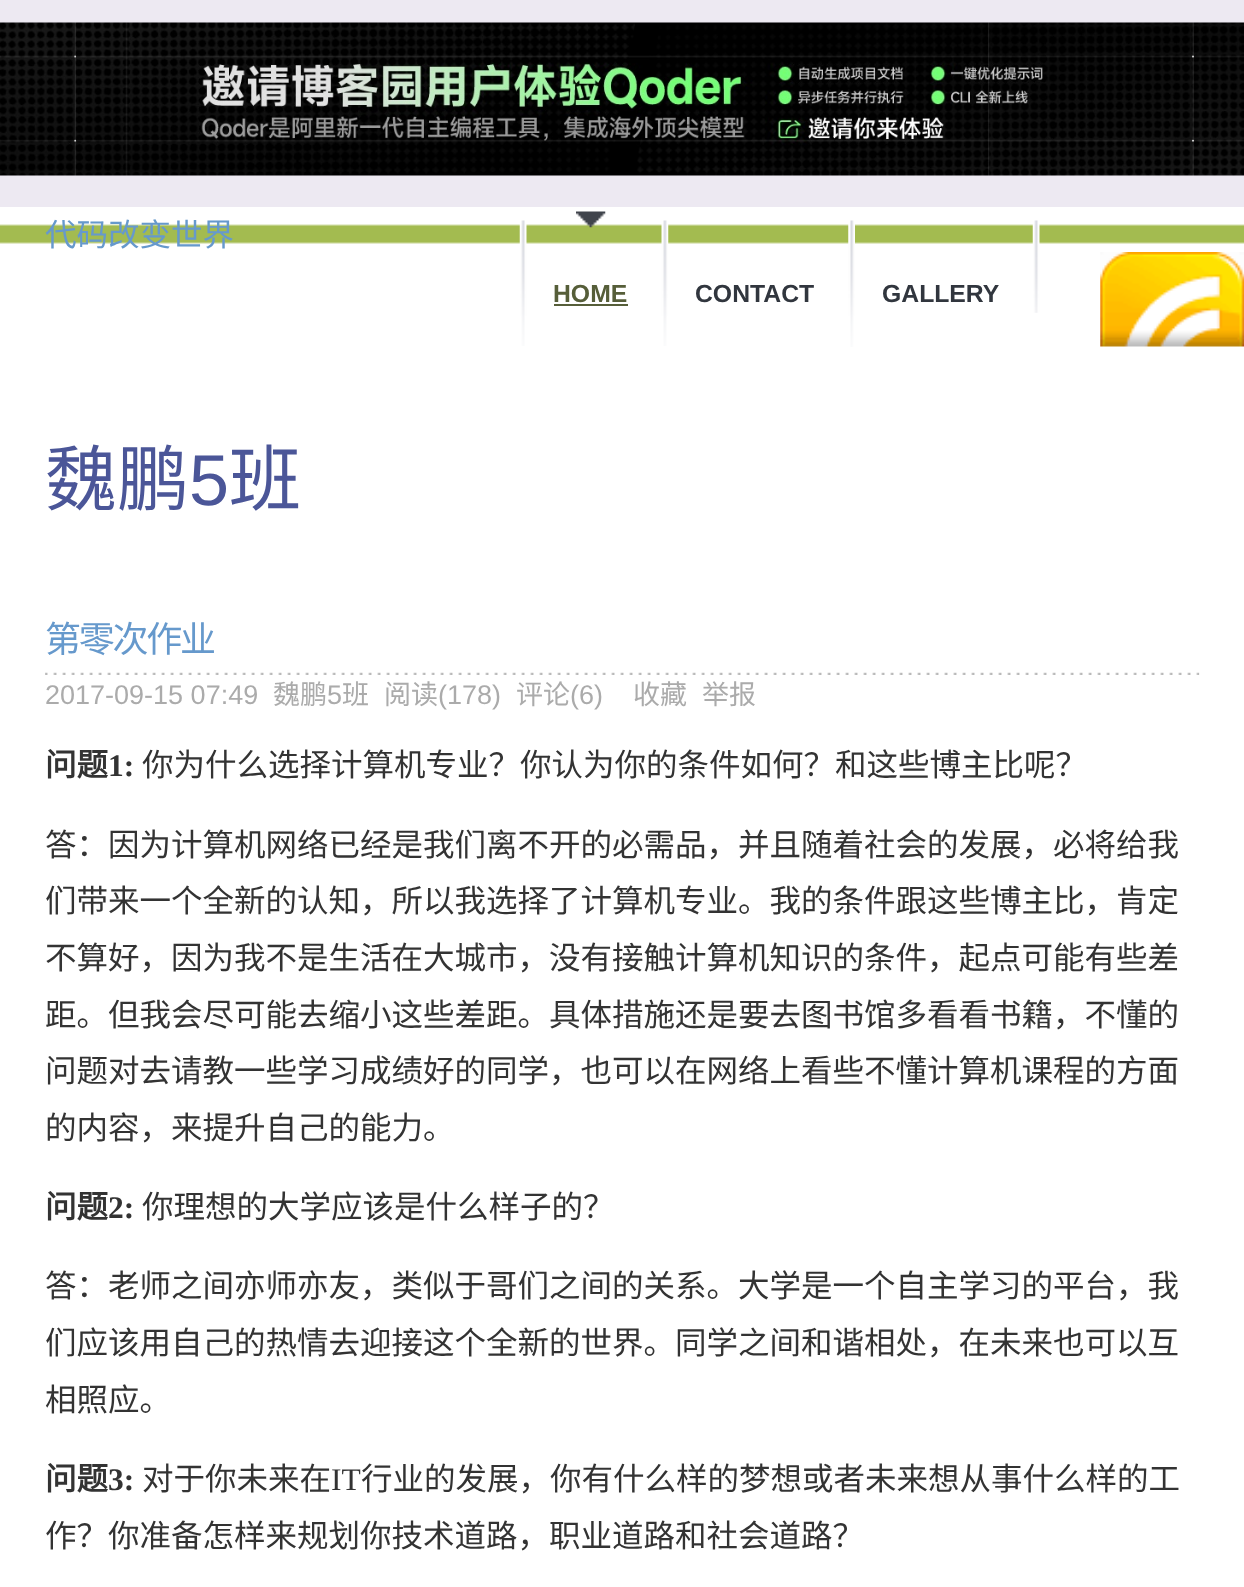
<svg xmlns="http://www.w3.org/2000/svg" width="1244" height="1587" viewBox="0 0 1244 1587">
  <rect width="100%" height="100%" fill="rgb(255,255,255)"/>
  <image x="0" y="207" width="1244" height="37" href="pic1.png"/>
  <rect x="0" y="0" width="1244" height="207" fill="rgb(237,233,242)"/>
  <image x="0" y="22" width="1244" height="154" href="pic2.png"/>
  <text x="45" y="246" font-family="Noto Sans CJK SC" font-size="31.5" fill="rgb(102,153,204)">代码改变世界</text>
  <image x="519" y="220" width="8" height="126" href="pic3.png"/>
  <image x="576" y="211" width="30" height="17" href="pic4.png"/>
  <text x="553" y="302" font-family="Liberation Sans" font-size="24.75" font-weight="bold" fill="rgb(86,94,57)">HOME</text>
  <rect x="554" y="304" width="74" height="2" fill="rgb(86,94,57)"/>
  <image x="661" y="220" width="8" height="126" href="pic5.png"/>
  <text x="695" y="302" font-family="Liberation Sans" font-size="24.75" font-weight="bold" fill="rgb(49,54,62)">CONTACT</text>
  <image x="848" y="220" width="7" height="127" href="pic6.png"/>
  <text x="882" y="302" font-family="Liberation Sans" font-size="24.75" font-weight="bold" fill="rgb(49,54,62)">GALLERY</text>
  <image x="1032" y="220" width="8" height="93" href="pic7.png"/>
  <image x="1100" y="252" width="144" height="95" href="pic8.png"/>
  <text x="45" y="505" font-family="Noto Sans CJK SC" font-size="72" fill="rgb(75,86,152)">魏鹏</text>
  <text x="189" y="505" font-family="Liberation Sans" font-size="72" fill="rgb(75,86,152)">5</text>
  <text x="229" y="505" font-family="Noto Sans CJK SC" font-size="72" fill="rgb(75,86,152)">班</text>
  <image x="45" y="672" width="1155" height="3" href="pic9.png"/>
  <text x="45" y="652" font-family="Noto Sans CJK SC" font-size="36" letter-spacing="-2.25" fill="rgb(102,153,204)">第零次作业</text>
  <text x="45" y="704" font-family="Liberation Sans" font-size="27" fill="rgb(171,171,171)">2017-09-15 07:49</text>
  <text x="273" y="704" font-family="Noto Sans CJK SC" font-size="27" fill="rgb(171,171,171)">魏鹏</text>
  <text x="327" y="704" font-family="Liberation Sans" font-size="27" fill="rgb(171,171,171)">5</text>
  <g font-family="Noto Sans CJK SC" font-size="27" fill="rgb(171,171,171)">
    <text x="342" y="704">班</text>
    <text x="384" y="704">阅读</text>
  </g>
  <text x="438" y="704" font-family="Liberation Sans" font-size="27" fill="rgb(171,171,171)">(178)</text>
  <text x="516" y="704" font-family="Noto Sans CJK SC" font-size="27" fill="rgb(171,171,171)">评论</text>
  <text x="570" y="704" font-family="Liberation Sans" font-size="27" fill="rgb(171,171,171)">(6)</text>
  <g font-family="Noto Sans CJK SC" font-size="27" fill="rgb(171,171,171)">
    <text x="633" y="704">收藏</text>
    <text x="702" y="704">举报</text>
  </g>
  <text x="45" y="776" font-family="Noto Sans CJK SC" font-size="31.5" font-weight="bold" fill="rgb(51,51,51)">问题</text>
  <text x="108" y="776" font-family="Liberation Serif" font-size="31.5" font-weight="bold" fill="rgb(51,51,51)">1:</text>
  <g font-family="Noto Sans CJK SC" font-size="31.5" fill="rgb(51,51,51)">
    <text x="142" y="776">你为什么选择计算机专业？你认为你的条件如何？和这些博主比呢？</text>
    <text>
      <tspan x="45" y="856">答：因为计算机网络已经是我们离不开的必需品，并且随着社会的发展，必将给我</tspan>
      <tspan x="45" y="912">们带来一个全新的认知，所以我选择了计算机专业。我的条件跟这些博主比，肯定</tspan>
      <tspan x="45" y="969">不算好，因为我不是生活在大城市，没有接触计算机知识的条件，起点可能有些差</tspan>
      <tspan x="45" y="1026">距。但我会尽可能去缩小这些差距。具体措施还是要去图书馆多看看书籍，不懂的</tspan>
      <tspan x="45" y="1082">问题对去请教一些学习成绩好的同学，也可以在网络上看些不懂计算机课程的方面</tspan>
      <tspan x="45" y="1139">的内容，来提升自己的能力。</tspan>
    </text>
  </g>
  <text x="45" y="1218" font-family="Noto Sans CJK SC" font-size="31.5" font-weight="bold" fill="rgb(51,51,51)">问题</text>
  <text x="108" y="1218" font-family="Liberation Serif" font-size="31.5" font-weight="bold" fill="rgb(51,51,51)">2:</text>
  <g font-family="Noto Sans CJK SC" font-size="31.5" fill="rgb(51,51,51)">
    <text x="142" y="1218">你理想的大学应该是什么样子的？</text>
    <text>
      <tspan x="45" y="1297">答：老师之间亦师亦友，类似于哥们之间的关系。大学是一个自主学习的平台，我</tspan>
      <tspan x="45" y="1354">们应该用自己的热情去迎接这个全新的世界。同学之间和谐相处，在未来也可以互</tspan>
      <tspan x="45" y="1411">相照应。</tspan>
    </text>
  </g>
  <text x="45" y="1490" font-family="Noto Sans CJK SC" font-size="31.5" font-weight="bold" fill="rgb(51,51,51)">问题</text>
  <text x="108" y="1490" font-family="Liberation Serif" font-size="31.5" font-weight="bold" fill="rgb(51,51,51)">3:</text>
  <text x="142" y="1490" font-family="Noto Sans CJK SC" font-size="31.5" fill="rgb(51,51,51)">对于你未来在</text>
  <text x="331" y="1490" font-family="Liberation Serif" font-size="31.5" fill="rgb(51,51,51)">IT</text>
  <g font-family="Noto Sans CJK SC" font-size="31.5" fill="rgb(51,51,51)">
    <text x="361" y="1490">行业的发展，你有什么样的梦想或者未来想从事什么样的工</text>
    <text x="45" y="1547">作？你准备怎样来规划你技术道路，职业道路和社会道路？</text>
  </g>
</svg>
